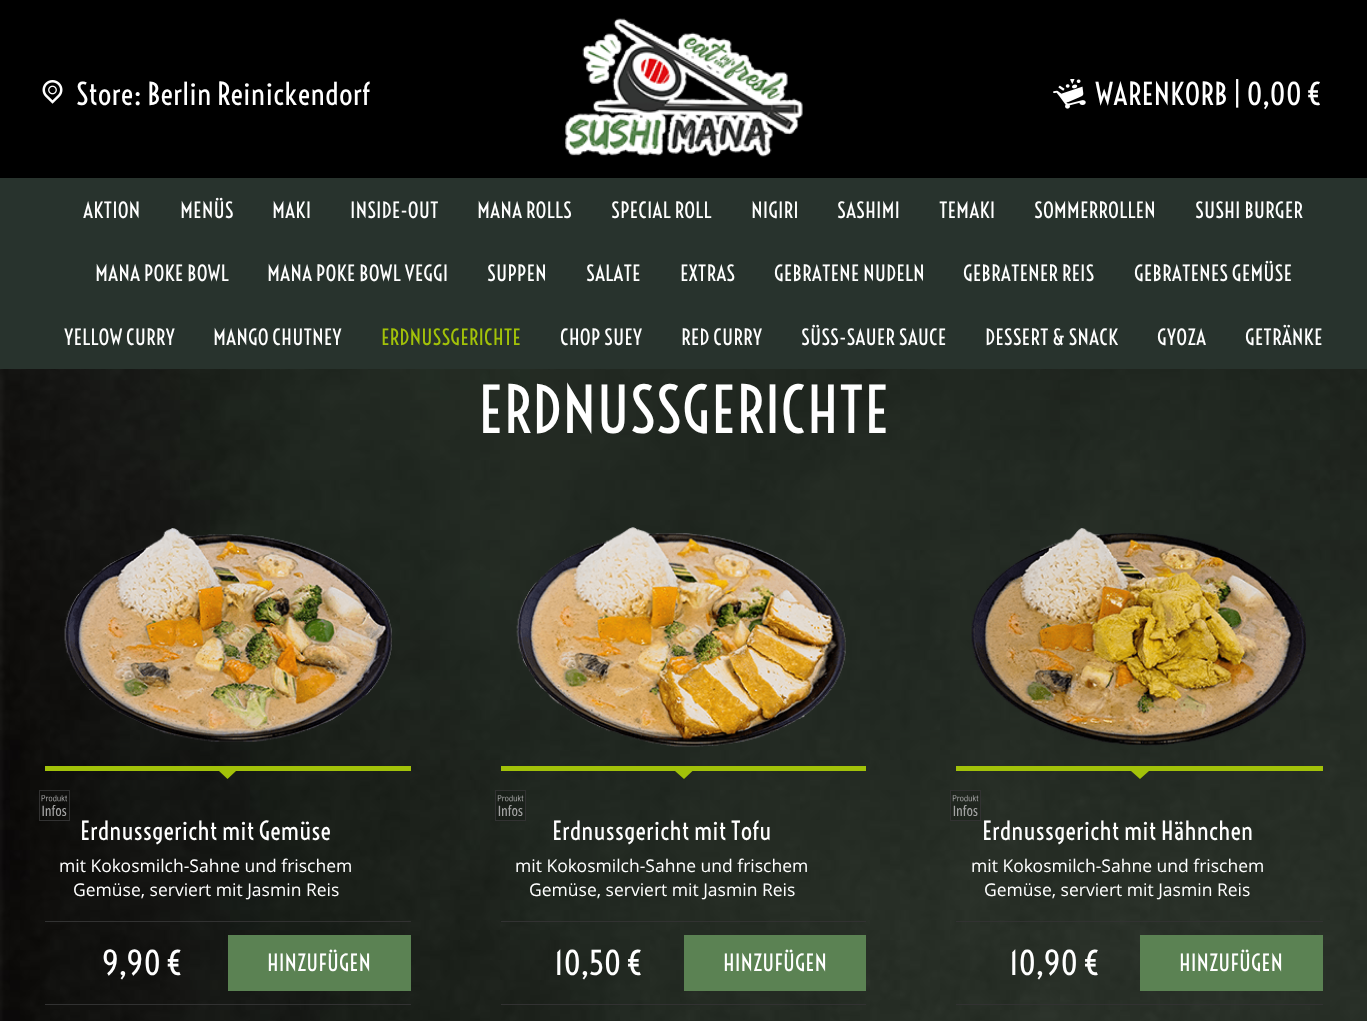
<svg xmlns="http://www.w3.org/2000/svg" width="1367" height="1021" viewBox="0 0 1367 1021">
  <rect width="100%" height="100%" fill="rgb(255,255,255)"/>
  <image x="0" y="369" width="1367" height="652" href="pic1.png"/>
  <rect x="0" y="0" width="1367" height="178" fill="rgb(0,0,0)"/>
  <image x="42" y="80" width="21" height="24" href="pic2.png"/>
  <text x="76" y="105" font-family="Voltaire" font-size="30" fill="rgb(255,255,255)">Store: Berlin Reinickendorf</text>
  <image x="565" y="18" width="238" height="139" href="pic3.png"/>
  <image x="1053" y="79" width="33" height="30" href="pic4.png"/>
  <g font-family="Voltaire" font-size="30" fill="rgb(255,255,255)">
    <text x="1095" y="105">WARENKORB</text>
    <text x="1233" y="105">| 0,00 €</text>
  </g>
  <rect x="0" y="178" width="1367" height="191" fill="rgb(40,51,45)"/>
  <g font-family="Voltaire" font-size="21.25" fill="rgb(255,255,255)">
    <text x="83" y="218">AKTION</text>
    <text x="180" y="218">MENÜS</text>
    <text x="272" y="218">MAKI</text>
    <text x="350" y="218">INSIDE-OUT</text>
    <text x="477" y="218">MANA ROLLS</text>
    <text x="611" y="218">SPECIAL ROLL</text>
    <text x="751" y="218">NIGIRI</text>
    <text x="837" y="218">SASHIMI</text>
    <text x="939" y="218">TEMAKI</text>
    <text x="1034" y="218">SOMMERROLLEN</text>
    <text x="1195" y="218">SUSHI BURGER</text>
    <text x="95" y="281">MANA POKE BOWL</text>
    <text x="267" y="281">MANA POKE BOWL VEGGI</text>
    <text x="487" y="281">SUPPEN</text>
    <text x="586" y="281">SALATE</text>
    <text x="680" y="281">EXTRAS</text>
    <text x="774" y="281">GEBRATENE NUDELN</text>
    <text x="963" y="281">GEBRATENER REIS</text>
    <text x="1134" y="281">GEBRATENES GEMÜSE</text>
    <text x="64" y="345">YELLOW CURRY</text>
    <text x="213" y="345">MANGO CHUTNEY</text>
  </g>
  <text x="381" y="345" font-family="Voltaire" font-size="21.25" fill="rgb(162,194,9)">ERDNUSSGERICHTE</text>
  <g font-family="Voltaire" font-size="21.25" fill="rgb(255,255,255)">
    <text x="560" y="345">CHOP SUEY</text>
    <text x="681" y="345">RED CURRY</text>
    <text x="801" y="345">SÜSS-SAUER SAUCE</text>
    <text x="985" y="345">DESSERT &amp; SNACK</text>
    <text x="1157" y="345">GYOZA</text>
    <text x="1245" y="345">GETRÄNKE</text>
  </g>
  <text x="478" y="433" font-family="Voltaire" font-size="62.5" fill="rgb(255,255,255)">ERDNUSSGERICHTE</text>
  <rect x="45" y="766" width="366" height="5" fill="rgb(162,194,9)"/>
  <image x="64" y="528" width="328" height="214" href="pic5.png"/>
  <path d="M219 771H236L227.5 779Z" fill="rgb(162,194,9)"/>
  <rect x="50" y="798" width="15" height="14" fill="rgba(0,0,0,0.15)"/>
  <rect x="39.5" y="790.5" width="30" height="30" fill="none" stroke="rgb(50,50,50)"/>
  <image x="41" y="795" width="27" height="21" href="pic6.png"/>
  <text x="80" y="840" font-family="Voltaire" font-size="25" fill="rgb(255,255,255)">Erdnussgericht mit Gemüse</text>
  <g font-family="Open Sans" font-size="17.5" fill="rgb(255,255,255)">
    <text x="59" y="872">mit Kokosmilch-Sahne und frischem</text>
    <text x="73" y="896">Gemüse, serviert mit Jasmin Reis</text>
  </g>
  <rect x="45" y="921" width="366" height="1" fill="rgb(50,50,50)"/>
  <rect x="45" y="1004" width="366" height="1" fill="rgb(50,50,50)"/>
  <text x="102" y="975" font-family="Voltaire" font-size="32.5" fill="rgb(255,255,255)">9,90 €</text>
  <rect x="228" y="935" width="183" height="56" fill="rgb(91,130,83)"/>
  <text x="267" y="971" font-family="Voltaire" font-size="22.5" fill="rgb(255,255,255)">HINZUFÜGEN</text>
  <rect x="501" y="766" width="365" height="5" fill="rgb(162,194,9)"/>
  <image x="516" y="527" width="330" height="220" href="pic7.png"/>
  <path d="M675 771H692.5L684 779Z" fill="rgb(162,194,9)"/>
  <rect x="495.5" y="790.5" width="30" height="30" fill="rgba(0,0,0,0.15)" stroke="rgb(50,50,50)"/>
  <image x="497" y="795" width="27" height="21" href="pic8.png"/>
  <text x="552" y="840" font-family="Voltaire" font-size="25" fill="rgb(255,255,255)">Erdnussgericht mit Tofu</text>
  <g font-family="Open Sans" font-size="17.5" fill="rgb(255,255,255)">
    <text x="515" y="872">mit Kokosmilch-Sahne und frischem</text>
    <text x="529" y="896">Gemüse, serviert mit Jasmin Reis</text>
  </g>
  <rect x="501" y="921" width="365" height="1" fill="rgb(50,50,50)"/>
  <rect x="501" y="1004" width="365" height="1" fill="rgb(50,50,50)"/>
  <text x="554" y="975" font-family="Voltaire" font-size="32.5" fill="rgb(255,255,255)">10,50 €</text>
  <rect x="684" y="935" width="182" height="56" fill="rgb(91,130,83)"/>
  <text x="723" y="971" font-family="Voltaire" font-size="22.5" fill="rgb(255,255,255)">HINZUFÜGEN</text>
  <rect x="956" y="766" width="367" height="5" fill="rgb(162,194,9)"/>
  <image x="971" y="528" width="335" height="218" href="pic9.png"/>
  <path d="M1131 771H1149L1140 779Z" fill="rgb(162,194,9)"/>
  <rect x="950.5" y="790.5" width="30" height="30" fill="rgba(0,0,0,0.15)" stroke="rgb(50,50,50)"/>
  <image x="952" y="795" width="27" height="21" href="pic10.png"/>
  <text x="982" y="840" font-family="Voltaire" font-size="25" fill="rgb(255,255,255)">Erdnussgericht mit Hähnchen</text>
  <g font-family="Open Sans" font-size="17.5" fill="rgb(255,255,255)">
    <text x="971" y="872">mit Kokosmilch-Sahne und frischem</text>
    <text x="984" y="896">Gemüse, serviert mit Jasmin Reis</text>
  </g>
  <rect x="956" y="921" width="367" height="1" fill="rgb(50,50,50)"/>
  <rect x="956" y="1004" width="367" height="1" fill="rgb(50,50,50)"/>
  <text x="1009" y="975" font-family="Voltaire" font-size="32.5" fill="rgb(255,255,255)">10,90 €</text>
  <rect x="1140" y="935" width="183" height="56" fill="rgb(91,130,83)"/>
  <text x="1179" y="971" font-family="Voltaire" font-size="22.5" fill="rgb(255,255,255)">HINZUFÜGEN</text>
</svg>
